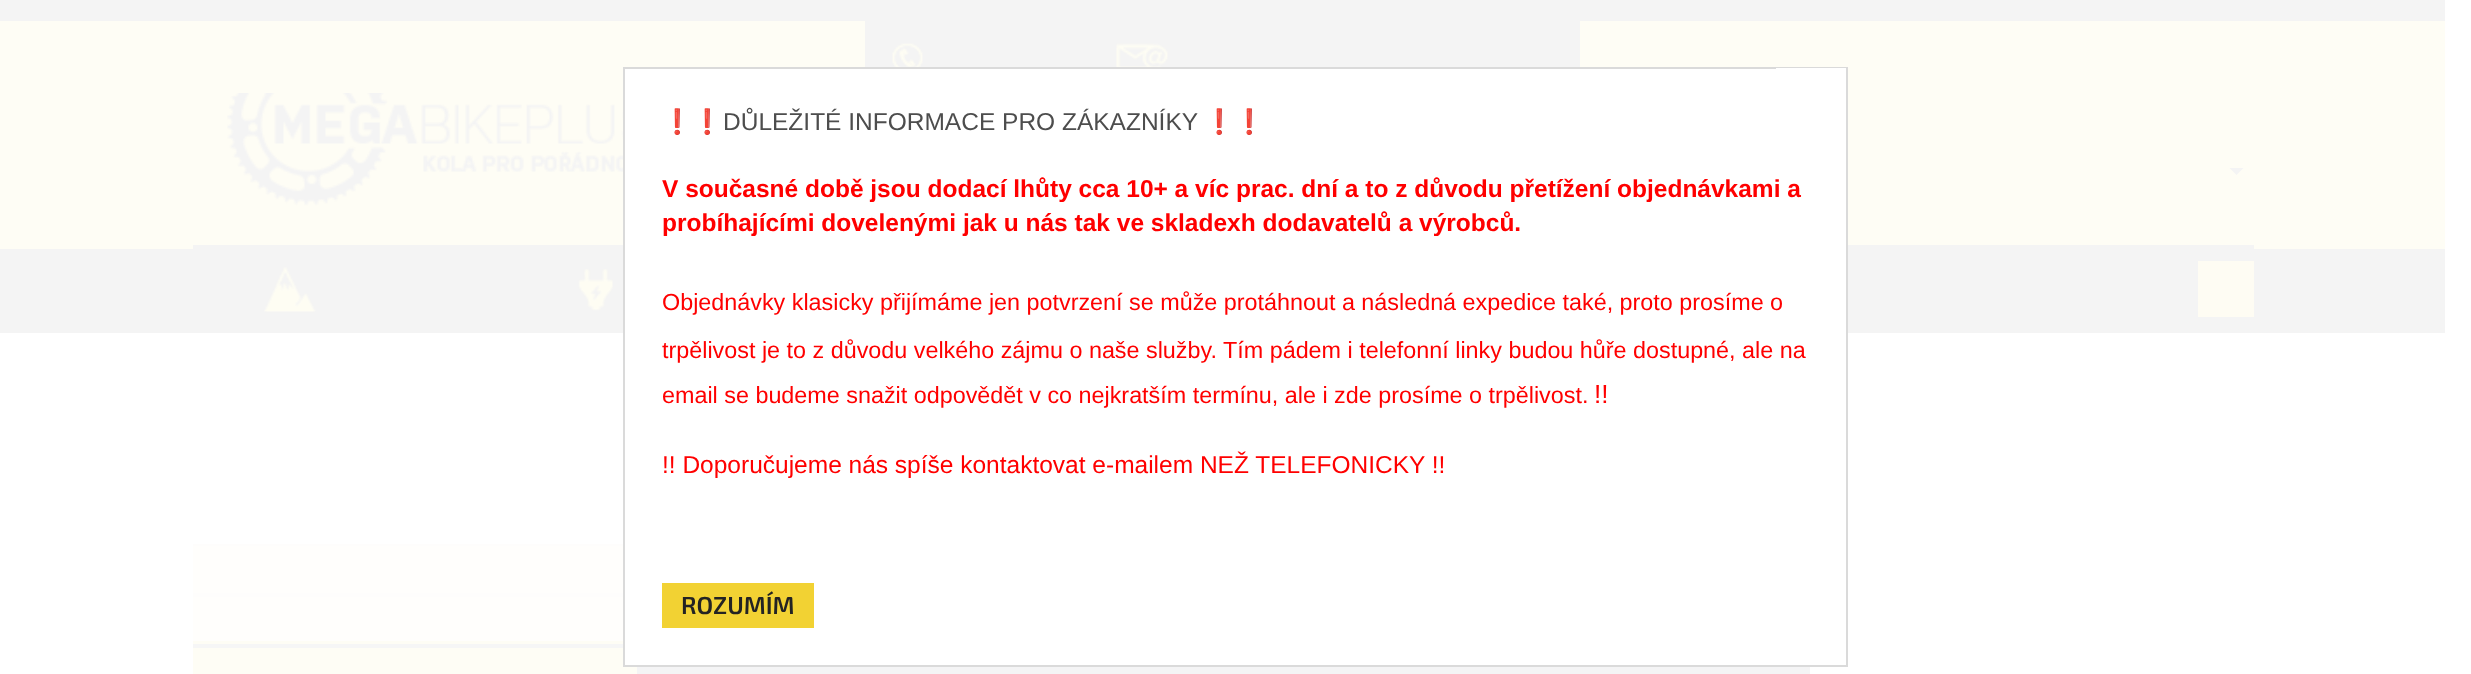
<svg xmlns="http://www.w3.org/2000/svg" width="2471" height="674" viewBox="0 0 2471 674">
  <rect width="100%" height="100%" fill="rgb(255,255,255)"/>
  <rect x="0" y="0" width="2445" height="21" fill="rgb(244,244,244)"/>
  <rect x="0" y="21" width="2445" height="228" fill="rgb(254,253,245)"/>
  <rect x="867" y="23" width="711" height="44" fill="rgb(244,244,244)"/>
  <rect x="866" y="22" width="713" height="70" fill="none" stroke="rgb(244,244,244)" stroke-width="2"/>
  <image x="892" y="43" width="31" height="24" href="pic1.png"/>
  <image x="1116" y="43" width="52" height="24" href="pic2.png"/>
  <rect x="0" y="249" width="2445" height="84" fill="rgb(244,244,244)"/>
  <image x="227" y="93" width="396" height="113" href="pic3.png"/>
  <path d="M2229.5 168H2243.5L2236.5 175Z" fill="rgb(244,244,244)"/>
  <rect x="193" y="245" width="2061" height="4" fill="rgb(244,244,244)"/>
  <image x="263" y="266" width="53" height="47" href="pic4.png"/>
  <image x="578" y="269" width="35" height="42" href="pic5.png"/>
  <rect x="2198" y="261" width="56" height="56" fill="rgb(254,252,243)"/>
  <rect x="193" y="546" width="430" height="47" fill="rgb(254,253,245)"/>
  <rect x="193" y="544" width="430" height="2" fill="rgb(246,246,246)"/>
  <rect x="193" y="593" width="430" height="4" fill="rgb(246,246,246)"/>
  <rect x="193" y="597" width="430" height="47" fill="rgb(254,253,245)"/>
  <rect x="193" y="644" width="430" height="4" fill="rgb(246,246,246)"/>
  <rect x="193" y="648" width="444" height="26" fill="rgb(254,253,245)"/>
  <rect x="193" y="544" width="430" height="97" fill="rgba(255,254,253,0.9)"/>
  <rect x="624" y="68" width="1223" height="598" fill="rgb(255,255,255)" stroke="rgb(218,218,218)" stroke-width="2"/>
  <rect x="1776" y="68" width="70" height="1" fill="rgb(255,255,255)"/>
  <text x="662" y="130" font-family="Noto Color Emoji" font-size="24.5" fill="rgb(77,77,77)">❗️❗️</text>
  <text x="723" y="130" font-family="Liberation Sans" font-size="24.5" fill="rgb(77,77,77)">DŮLEŽITÉ INFORMACE PRO ZÁKAZNÍKY</text>
  <text x="1204" y="130" font-family="Noto Color Emoji" font-size="24.5" fill="rgb(77,77,77)">❗️❗️</text>
  <g font-family="Liberation Sans" font-size="24.5" font-weight="bold" fill="rgb(255,0,0)">
    <text>
      <tspan x="662" y="197">V současné době jsou dodací lhůty cca 10+ a víc prac. dní a to z důvodu přetížení objednávkami a</tspan>
      <tspan x="662" y="231">probíhajícími dovelenými jak u nás tak ve skladexh dodavatelů a výrobců.</tspan>
    </text>
  </g>
  <g font-family="Liberation Sans" font-size="23.35" fill="rgb(255,0,0)">
    <text x="662" y="310">Objednávky klasicky přijímáme jen potvrzení se může protáhnout a následná expedice také, proto prosíme o</text>
    <text>
      <tspan x="662" y="358">trpělivost je to z důvodu velkého zájmu o naše služby. Tím pádem i telefonní linky budou hůře dostupné, ale na</tspan>
      <tspan x="662" y="403">email se budeme snažit odpovědět v co nejkratším termínu, ale i zde prosíme o trpělivost.</tspan>
    </text>
  </g>
  <text x="1594" y="403" font-family="Liberation Sans" font-size="26" fill="rgb(255,0,0)">!!</text>
  <text x="662" y="473" font-family="Liberation Sans" font-size="24.5" fill="rgb(255,0,0)">!! Doporučujeme nás spíše kontaktovat e-mailem NEŽ TELEFONICKY !!</text>
  <rect x="662" y="583" width="152" height="45" fill="rgb(242,210,51)"/>
  <text x="681" y="614" font-family="'Exo 2'" font-size="24.5" font-weight="600" fill="rgb(35,35,35)">ROZUMÍM</text>
  <rect x="637" y="667" width="1173" height="7" fill="rgb(244,244,245)"/>
</svg>
